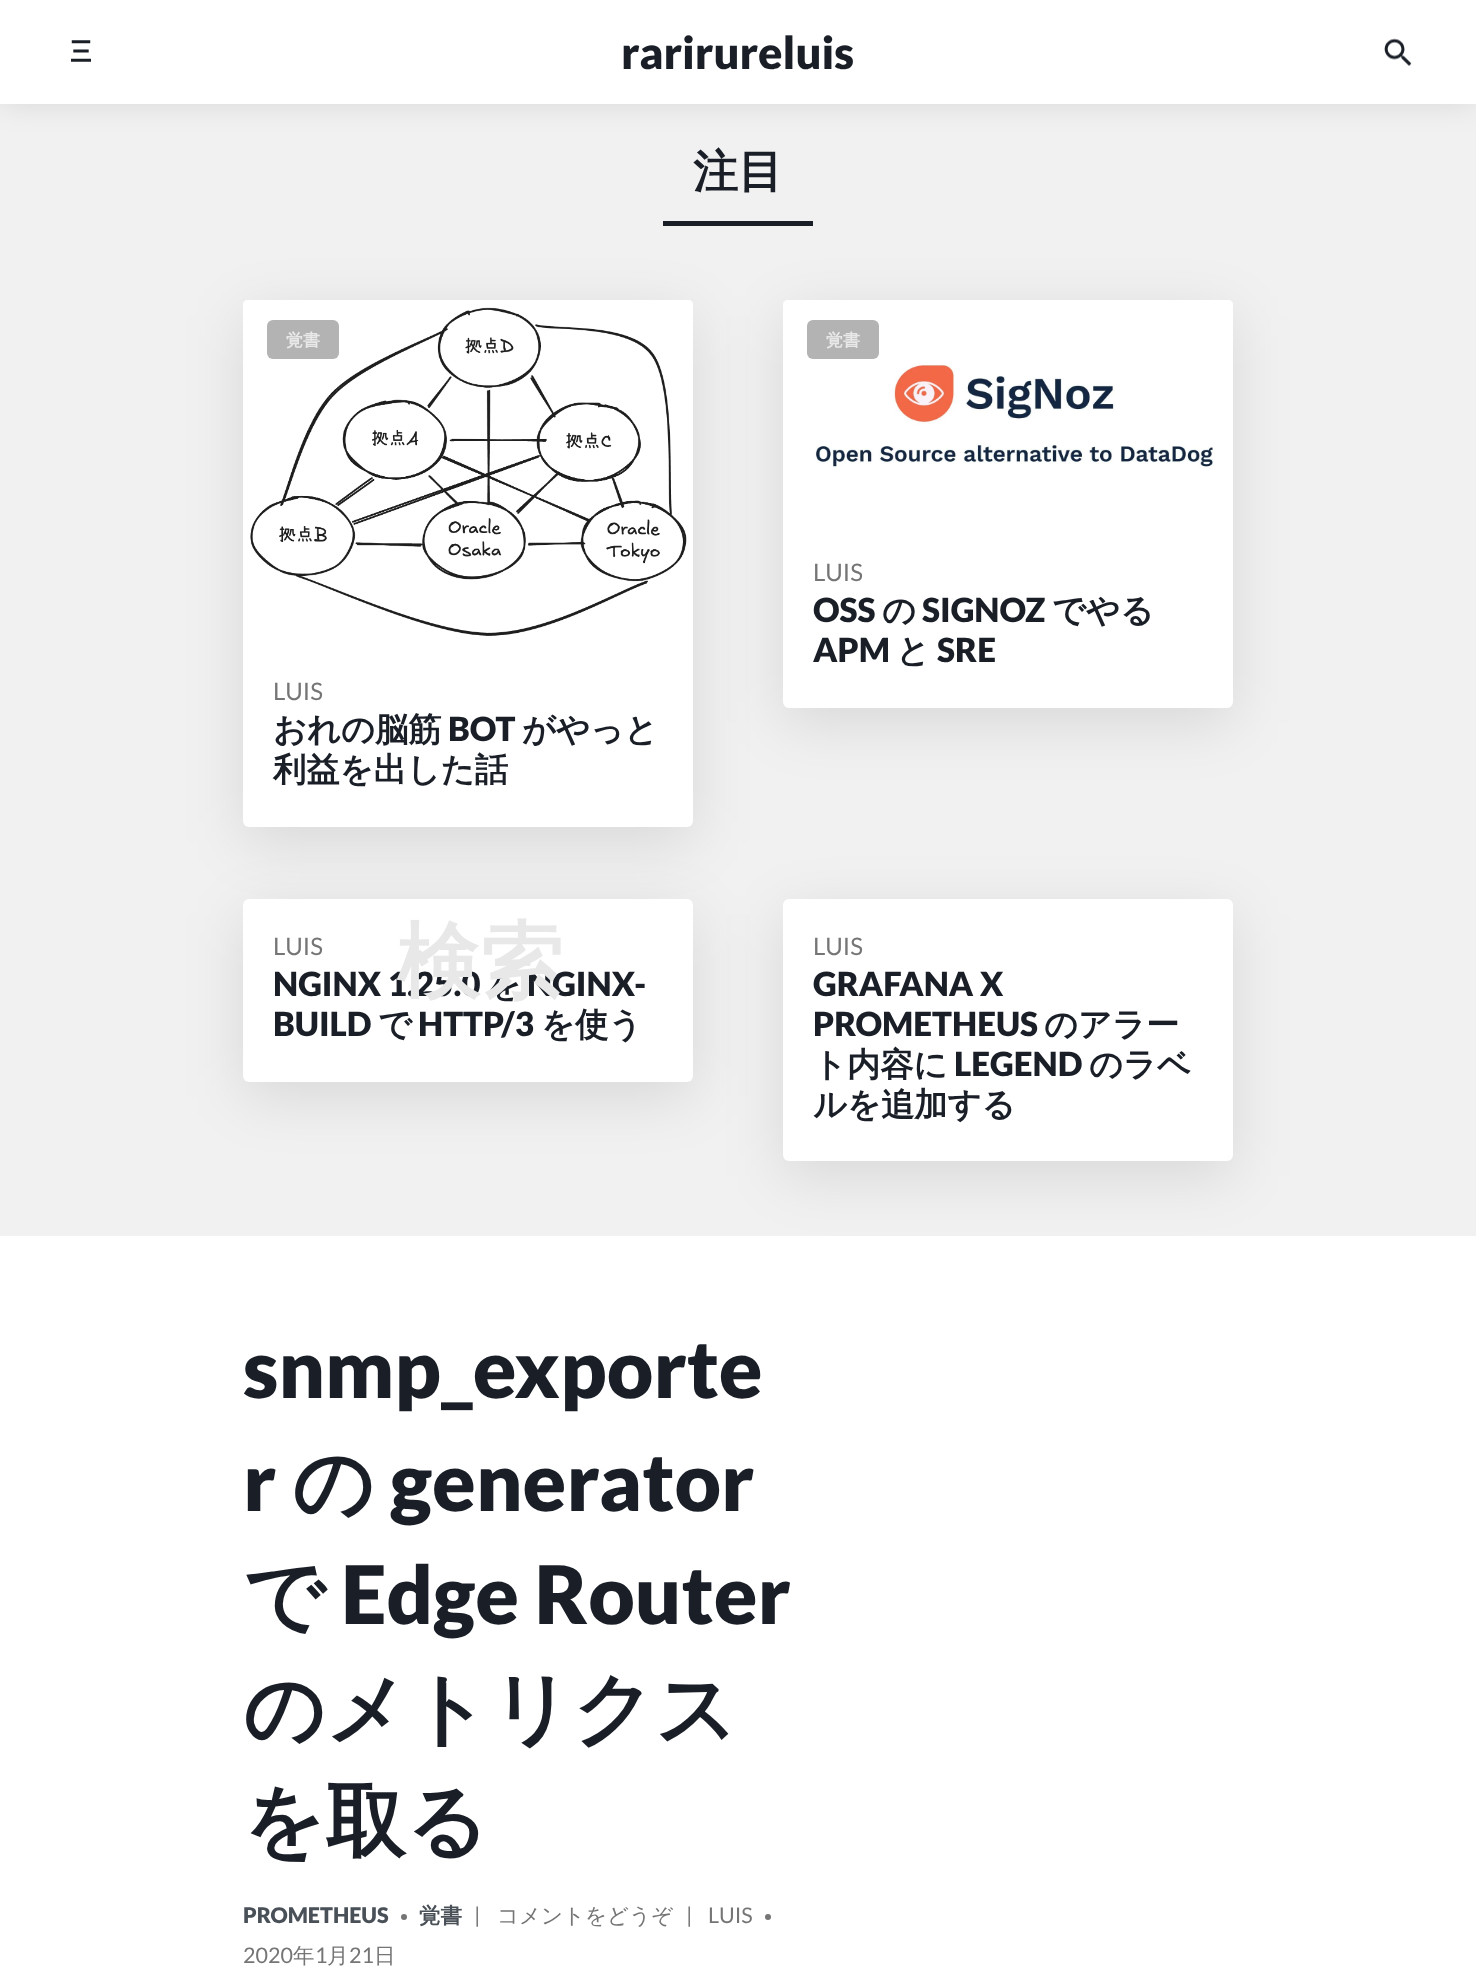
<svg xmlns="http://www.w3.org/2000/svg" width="1476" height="1966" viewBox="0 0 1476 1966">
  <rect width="100%" height="100%" fill="rgb(255,255,255)"/>
  <rect x="0" y="104" width="1476" height="1132" fill="rgb(241,241,241)"/>
  <rect x="0" y="0" width="1476" height="104" fill="rgba(0,0,0,0.1)" filter="blur(15px)"/>
  <rect x="0" y="0" width="1476" height="104" fill="rgb(255,255,255)"/>
  <image x="71" y="40" width="20" height="22" href="pic1.png"/>
  <text x="621" y="69" font-family="Lato" font-size="45" font-weight="900" fill="rgb(25,30,39)">rarirureluis</text>
  <image x="1384" y="38" width="28" height="28" href="pic2.png"/>
  <text x="693" y="187" font-family="WenQuanYi Zen Hei" font-size="45" font-weight="bold" fill="rgb(25,30,39)">注目</text>
  <rect x="663" y="221" width="150" height="5" fill="rgb(25,30,39)"/>
  <rect x="243" y="315" width="450" height="527" rx="6" fill="rgba(0,0,0,0.1)" filter="blur(30px)"/>
  <rect x="243" y="300" width="450" height="527" rx="6" fill="rgb(255,255,255)"/>
  <image x="243" y="300" width="450" height="336" href="pic3.png"/>
  <rect x="267" y="320" width="72" height="39" rx="6" fill="rgb(179,179,179)"/>
  <text x="286" y="346" font-family="WenQuanYi Zen Hei" font-size="17" font-weight="bold" fill="rgb(232,232,232)">覚書</text>
  <text x="273" y="700" font-family="Lato" font-size="24" fill="rgb(117,117,117)">LUIS</text>
  <text x="273" y="741" font-family="WenQuanYi Zen Hei" font-size="33.25" font-weight="bold" fill="rgb(25,30,39)">おれの脳筋</text>
  <text x="448" y="741" font-family="Lato" font-size="33.25" font-weight="900" fill="rgb(25,30,39)">BOT</text>
  <g font-family="WenQuanYi Zen Hei" font-size="33.25" font-weight="bold" fill="rgb(25,30,39)">
    <text x="522" y="741">がやっと</text>
    <text x="273" y="781">利益を出した話</text>
  </g>
  <rect x="783" y="315" width="450" height="408" rx="6" fill="rgba(0,0,0,0.1)" filter="blur(30px)"/>
  <rect x="783" y="300" width="450" height="408" rx="6" fill="rgb(255,255,255)"/>
  <image x="783" y="300" width="450" height="169" href="pic4.png"/>
  <rect x="807" y="320" width="72" height="39" rx="6" fill="rgb(179,179,179)"/>
  <text x="826" y="346" font-family="WenQuanYi Zen Hei" font-size="17" font-weight="bold" fill="rgb(232,232,232)">覚書</text>
  <text x="813" y="581" font-family="Lato" font-size="24" fill="rgb(117,117,117)">LUIS</text>
  <text x="813" y="622" font-family="Lato" font-size="33.25" font-weight="900" fill="rgb(25,30,39)">OSS</text>
  <text x="882" y="622" font-family="WenQuanYi Zen Hei" font-size="33.25" font-weight="bold" fill="rgb(25,30,39)">の</text>
  <text x="922" y="622" font-family="Lato" font-size="33.25" font-weight="900" fill="rgb(25,30,39)">SIGNOZ</text>
  <text x="1052" y="622" font-family="WenQuanYi Zen Hei" font-size="33.25" font-weight="bold" fill="rgb(25,30,39)">でやる</text>
  <text x="813" y="662" font-family="Lato" font-size="33.25" font-weight="900" fill="rgb(25,30,39)">APM</text>
  <text x="896" y="662" font-family="WenQuanYi Zen Hei" font-size="33.25" font-weight="bold" fill="rgb(25,30,39)">と</text>
  <text x="937" y="662" font-family="Lato" font-size="33.25" font-weight="900" fill="rgb(25,30,39)">SRE</text>
  <rect x="243" y="914" width="450" height="183" rx="6" fill="rgba(0,0,0,0.1)" filter="blur(30px)"/>
  <rect x="243" y="899" width="450" height="183" rx="6" fill="rgb(255,255,255)"/>
  <text x="273" y="955" font-family="Lato" font-size="24" fill="rgb(117,117,117)">LUIS</text>
  <text x="273" y="996" font-family="Lato" font-size="33.25" font-weight="900" fill="rgb(25,30,39)">NGINX 1.25.0</text>
  <text x="487" y="996" font-family="WenQuanYi Zen Hei" font-size="33.25" font-weight="bold" fill="rgb(25,30,39)">を</text>
  <g font-family="Lato" font-size="33.25" font-weight="900" fill="rgb(25,30,39)">
    <text x="527" y="996">NGINX-</text>
    <text x="273" y="1036">BUILD</text>
  </g>
  <text x="378" y="1036" font-family="WenQuanYi Zen Hei" font-size="33.25" font-weight="bold" fill="rgb(25,30,39)">で</text>
  <text x="418" y="1036" font-family="Lato" font-size="33.25" font-weight="900" fill="rgb(25,30,39)">HTTP/3</text>
  <text x="541" y="1036" font-family="WenQuanYi Zen Hei" font-size="33.25" font-weight="bold" fill="rgb(25,30,39)">を使う</text>
  <rect x="783" y="914" width="450" height="262" rx="6" fill="rgba(0,0,0,0.1)" filter="blur(30px)"/>
  <rect x="783" y="899" width="450" height="262" rx="6" fill="rgb(255,255,255)"/>
  <text x="813" y="955" font-family="Lato" font-size="24" fill="rgb(117,117,117)">LUIS</text>
  <g font-family="Lato" font-size="33.25" font-weight="900" fill="rgb(25,30,39)">
    <text>
      <tspan x="813" y="996">GRAFANA X</tspan>
      <tspan x="813" y="1036">PROMETHEUS</tspan>
    </text>
  </g>
  <g font-family="WenQuanYi Zen Hei" font-size="33.25" font-weight="bold" fill="rgb(25,30,39)">
    <text x="1044" y="1036">のアラー</text>
    <text x="813" y="1076">ト内容に</text>
  </g>
  <text x="954" y="1076" font-family="Lato" font-size="33.25" font-weight="900" fill="rgb(25,30,39)">LEGEND</text>
  <g font-family="WenQuanYi Zen Hei" font-size="33.25" font-weight="bold" fill="rgb(25,30,39)">
    <text x="1089" y="1076">のラベ</text>
    <text x="813" y="1116">ルを追加する</text>
  </g>
  <text x="397" y="990" font-family="WenQuanYi Zen Hei" font-size="83" font-weight="bold" fill="rgb(232,232,232)">検索</text>
  <g font-family="Lato" font-size="80.5" font-weight="900" fill="rgb(25,30,39)">
    <text>
      <tspan x="243" y="1398">snmp_exporte</tspan>
      <tspan x="243" y="1511">r</tspan>
    </text>
  </g>
  <text x="292" y="1511" font-family="WenQuanYi Zen Hei" font-size="80.5" font-weight="bold" fill="rgb(25,30,39)">の</text>
  <text x="390" y="1511" font-family="Lato" font-size="80.5" font-weight="900" fill="rgb(25,30,39)">generator</text>
  <text x="243" y="1624" font-family="WenQuanYi Zen Hei" font-size="80.5" font-weight="bold" fill="rgb(25,30,39)">で</text>
  <text x="341" y="1624" font-family="Lato" font-size="80.5" font-weight="900" fill="rgb(25,30,39)">Edge Router</text>
  <g font-family="WenQuanYi Zen Hei" font-size="80.5" font-weight="bold" fill="rgb(25,30,39)">
    <text>
      <tspan x="243" y="1737">のメトリクス</tspan>
      <tspan x="243" y="1849">を取る</tspan>
    </text>
  </g>
  <text x="243" y="1923" font-family="Lato" font-size="21.5" font-weight="900" fill="rgb(73,80,87)">PROMETHEUS</text>
  <circle cx="404" cy="1917" r="3" fill="rgb(117,117,117)"/>
  <text x="419" y="1923" font-family="WenQuanYi Zen Hei" font-size="21.5" font-weight="bold" fill="rgb(73,80,87)">覚書</text>
  <text x="474" y="1923" font-family="Lato" font-size="21.5" fill="rgb(117,117,117)">|</text>
  <text x="497" y="1923" font-family="WenQuanYi Zen Hei" font-size="21.5" font-weight="500" fill="rgb(117,117,117)">コメントをどうぞ</text>
  <g font-family="Lato" font-size="21.5" fill="rgb(117,117,117)">
    <text x="686" y="1923">|</text>
    <text x="708" y="1923">LUIS</text>
  </g>
  <circle cx="768" cy="1917" r="3" fill="rgb(117,117,117)"/>
  <text x="243" y="1963" font-family="Lato" font-size="21.5" fill="rgb(117,117,117)">2020</text>
  <text x="293" y="1963" font-family="WenQuanYi Zen Hei" font-size="21.5" font-weight="500" fill="rgb(117,117,117)">年</text>
  <text x="315" y="1963" font-family="Lato" font-size="21.5" fill="rgb(117,117,117)">1</text>
  <text x="327" y="1963" font-family="WenQuanYi Zen Hei" font-size="21.5" font-weight="500" fill="rgb(117,117,117)">月</text>
  <text x="349" y="1963" font-family="Lato" font-size="21.5" fill="rgb(117,117,117)">21</text>
  <text x="374" y="1963" font-family="WenQuanYi Zen Hei" font-size="21.5" font-weight="500" fill="rgb(117,117,117)">日</text>
</svg>
